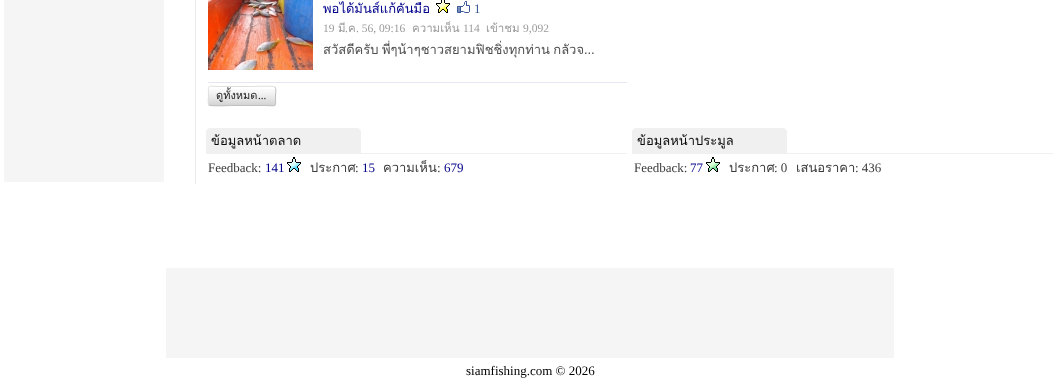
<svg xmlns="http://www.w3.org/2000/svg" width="1060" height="384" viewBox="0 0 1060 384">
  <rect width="100%" height="100%" fill="rgb(255,255,255)"/>
  <rect x="4" y="0" width="160" height="182" fill="rgb(245,245,245)"/>
  <rect x="195" y="0" width="1" height="184" fill="rgb(235,235,235)"/>
  <image x="208" y="0" width="105" height="70" href="pic1.png"/>
  <text x="323" y="13" font-family="Loma" font-size="13" fill="rgb(0,0,138)">พอได้มันส์แก้คันมือ</text>
  <image x="436" y="0" width="14" height="13" href="pic2.png"/>
  <image x="457" y="1" width="13" height="12" href="pic3.png"/>
  <text x="474" y="13" font-family="Liberation Serif" font-size="13" fill="rgb(59,89,152)">1</text>
  <text x="323" y="32" font-family="Liberation Serif" font-size="11.5" fill="rgb(155,155,155)">19</text>
  <text x="338" y="32" font-family="Loma" font-size="11.5" fill="rgb(155,155,155)">มี</text>
  <text x="345" y="32" font-family="Liberation Serif" font-size="11.5" fill="rgb(155,155,155)">.</text>
  <text x="348" y="32" font-family="Loma" font-size="11.5" fill="rgb(155,155,155)">ค</text>
  <text x="356" y="32" font-family="Liberation Serif" font-size="11.5" fill="rgb(155,155,155)">. 56, 09:16</text>
  <text x="412" y="32" font-family="Loma" font-size="11.5" fill="rgb(155,155,155)">ความเห็น</text>
  <text x="463" y="32" font-family="Liberation Serif" font-size="11.5" fill="rgb(155,155,155)">114</text>
  <text x="486" y="32" font-family="Loma" font-size="11.5" fill="rgb(155,155,155)">เข้าชม</text>
  <text x="523" y="32" font-family="Liberation Serif" font-size="11.5" fill="rgb(155,155,155)">9,092</text>
  <text x="323" y="54" word-spacing="-1" font-family="Loma" font-size="13" fill="rgb(78,78,78)">สวัสดีครับ พี่ๆน้าๆชาวสยามฟิชชิ่งทุกท่าน กลัวจ…</text>
  <rect x="208" y="82" width="419" height="1" fill="rgb(228,231,243)"/>
  <image x="208" y="89" width="68" height="17" href="pic4.png"/>
  <path d="M275 87C276.5 88.5 275.5 94 275.5 96C275.5 108.5 277.5 105.5 263.5 105.5H231.5C229 105.5 210.5 106.5 209 105" fill="none" stroke="rgb(192,192,192)"/>
  <path d="M209 105C207.5 103.5 208.5 98 208.5 96C208.5 83.5 206.5 86.5 220.5 86.5H252.5C255 86.5 273.5 85.5 275 87" fill="none" stroke="rgb(224,224,224)"/>
  <text x="216" y="99" font-family="Loma" font-size="11" fill="rgb(35,35,35)">ดูทั้งหมด</text>
  <text x="258" y="99" font-family="Liberation Serif" font-size="11" fill="rgb(35,35,35)">...</text>
  <rect x="206" y="153" width="421" height="1" fill="rgb(240,240,240)"/>
  <path d="M210 128H357C359 128 361 130 361 132V153H206V132C206 130 208 128 210 128Z" fill="rgb(240,240,240)"/>
  <text x="211" y="145" font-family="Loma" font-size="13" fill="rgb(10,10,10)">ข้อมูลหน้าตลาด</text>
  <text x="208" y="172" font-family="Liberation Serif" font-size="13" fill="rgb(59,59,59)">Feedback:</text>
  <text x="265" y="172" font-family="Liberation Serif" font-size="13" fill="rgb(0,0,138)">141</text>
  <image x="287" y="157" width="14" height="15" href="pic5.png"/>
  <text x="310" y="172" font-family="Loma" font-size="13" fill="rgb(59,59,59)">ประกาศ</text>
  <text x="355" y="172" font-family="Liberation Serif" font-size="13" fill="rgb(59,59,59)">:</text>
  <text x="362" y="172" font-family="Liberation Serif" font-size="13" fill="rgb(0,0,138)">15</text>
  <text x="383" y="172" font-family="Loma" font-size="13" fill="rgb(59,59,59)">ความเห็น</text>
  <text x="437" y="172" font-family="Liberation Serif" font-size="13" fill="rgb(59,59,59)">:</text>
  <text x="444" y="172" font-family="Liberation Serif" font-size="13" fill="rgb(0,0,138)">679</text>
  <rect x="632" y="153" width="421" height="1" fill="rgb(240,240,240)"/>
  <path d="M636 128H783C785 128 787 130 787 132V153H632V132C632 130 634 128 636 128Z" fill="rgb(240,240,240)"/>
  <text x="637" y="145" font-family="Loma" font-size="13" fill="rgb(10,10,10)">ข้อมูลหน้าประมูล</text>
  <text x="634" y="172" font-family="Liberation Serif" font-size="13" fill="rgb(59,59,59)">Feedback:</text>
  <text x="690" y="172" font-family="Liberation Serif" font-size="13" fill="rgb(0,0,138)">77</text>
  <image x="706" y="157" width="14" height="15" href="pic6.png"/>
  <text x="729" y="172" font-family="Loma" font-size="13" fill="rgb(59,59,59)">ประกาศ</text>
  <text x="774" y="172" font-family="Liberation Serif" font-size="13" fill="rgb(59,59,59)">: 0</text>
  <text x="796" y="172" font-family="Loma" font-size="13" fill="rgb(59,59,59)">เสนอราคา</text>
  <text x="855" y="172" font-family="Liberation Serif" font-size="13" fill="rgb(59,59,59)">: 436</text>
  <rect x="166" y="268" width="728" height="90" fill="rgb(245,245,245)"/>
  <text x="466" y="375" font-family="Liberation Serif" font-size="13" fill="rgb(0,0,0)">siamfishing.com © 2026</text>
</svg>
